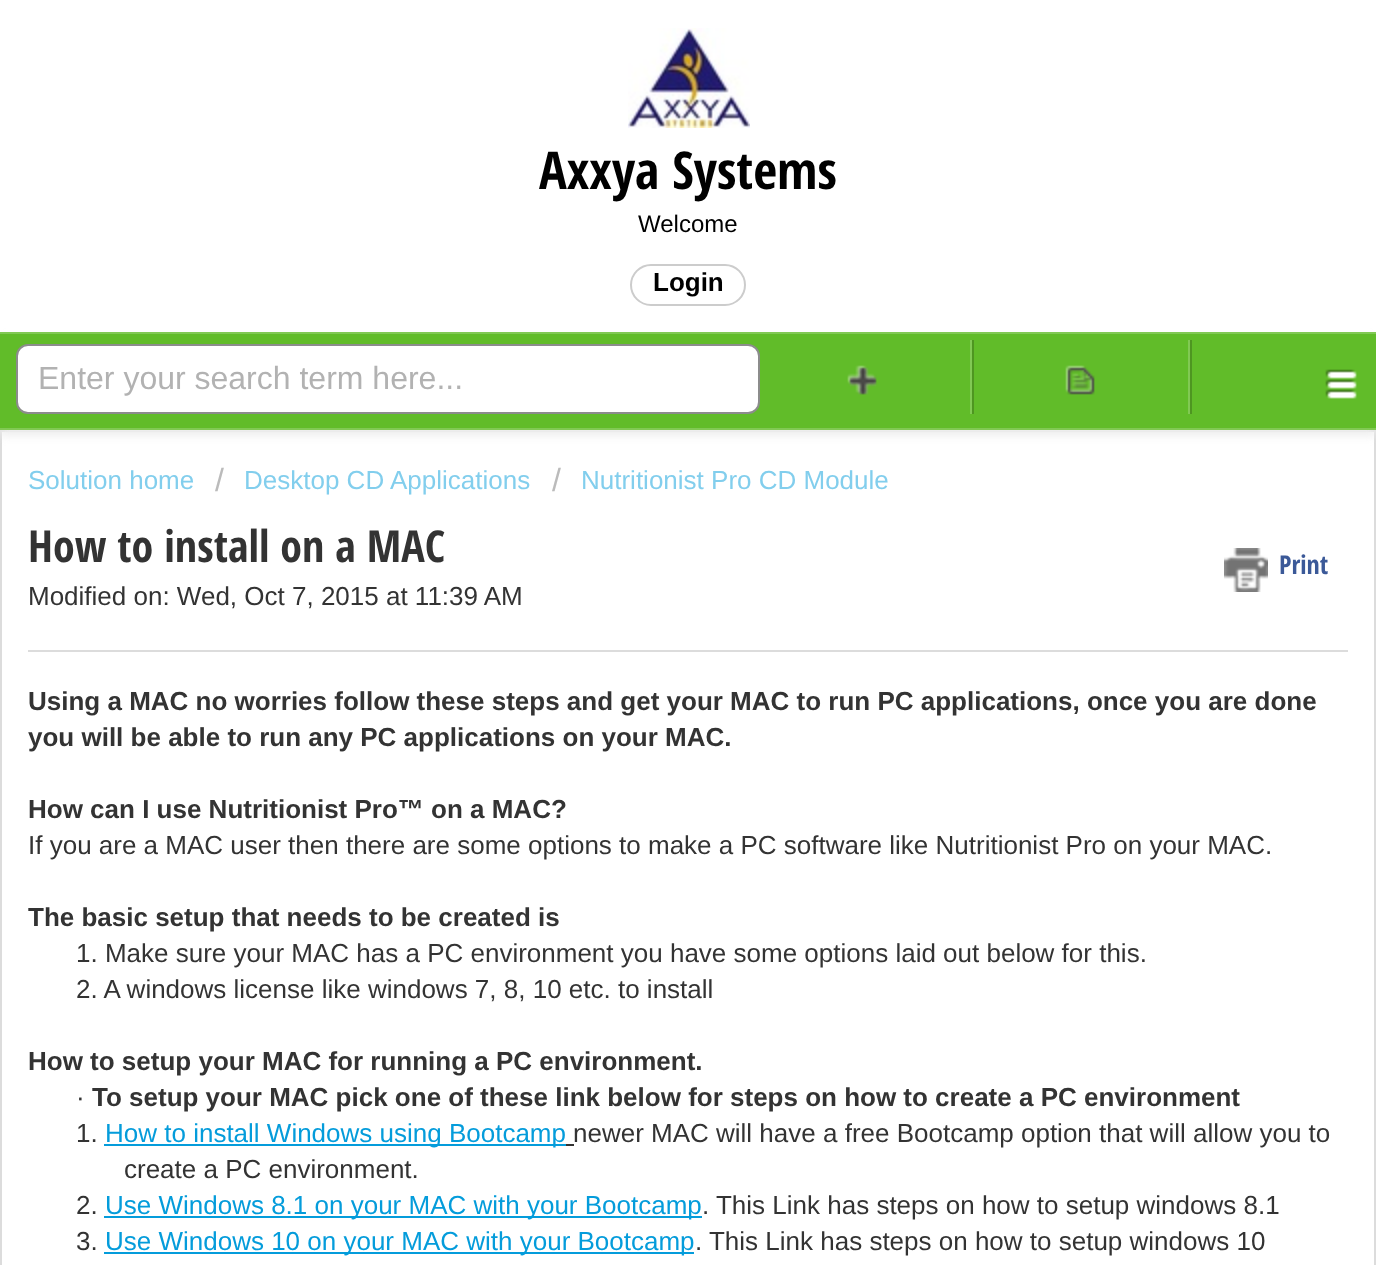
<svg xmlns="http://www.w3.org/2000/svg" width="1376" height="1265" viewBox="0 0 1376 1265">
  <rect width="100%" height="100%" fill="rgb(255,255,255)"/>
  <image x="628" y="28" width="122" height="100" href="pic1.png"/>
  <text x="539" y="189" font-family="Open Sans Condensed" font-size="52" font-weight="bold" fill="rgb(0,0,0)">Axxya Systems</text>
  <text x="638" y="232" font-family="Liberation Sans" font-size="24" fill="rgb(0,0,0)">Welcome</text>
  <rect x="631" y="265" width="114" height="40" rx="20" fill="none" stroke="rgb(204,204,204)" stroke-width="2"/>
  <text x="653" y="291" font-family="Liberation Sans" font-size="26" font-weight="bold" fill="rgb(0,0,0)">Login</text>
  <rect x="1" y="431" width="1374" height="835" fill="none" stroke="rgb(220,220,220)" stroke-width="2"/>
  <rect x="0" y="338" width="1376" height="98" fill="rgb(238,238,238)" filter="blur(4px)"/>
  <rect x="0" y="334" width="1376" height="94" fill="rgb(97,188,41)"/>
  <rect x="0" y="332" width="1376" height="2" fill="rgb(129,201,84)"/>
  <rect x="0" y="428" width="1376" height="2" fill="rgb(129,201,84)"/>
  <image x="1325" y="369" width="32" height="30" href="pic2.png"/>
  <rect x="17" y="345" width="742" height="68" rx="11" fill="rgb(255,255,255)" stroke="rgb(140,140,140)" stroke-width="2"/>
  <text x="38" y="389" font-family="Liberation Sans" font-size="32" fill="rgb(178,178,178)">Enter your search term here...</text>
  <rect x="972" y="340" width="2" height="74" fill="rgb(78,150,33)"/>
  <rect x="970" y="340" width="2" height="74" fill="rgb(129,201,84)"/>
  <image x="847" y="365" width="30" height="30" href="pic3.png"/>
  <rect x="1190" y="340" width="2" height="74" fill="rgb(78,150,33)"/>
  <rect x="1188" y="340" width="2" height="74" fill="rgb(129,201,84)"/>
  <image x="1065" y="365" width="30" height="30" href="pic4.png"/>
  <text x="28" y="489" font-family="Liberation Sans" font-size="26" fill="rgb(130,206,237)">Solution home</text>
  <text x="215" y="491" font-family="Liberation Sans" font-size="32" fill="rgb(187,187,187)">/</text>
  <text x="244" y="489" font-family="Liberation Sans" font-size="26" fill="rgb(130,206,237)">Desktop CD Applications</text>
  <text x="552" y="491" font-family="Liberation Sans" font-size="32" fill="rgb(187,187,187)">/</text>
  <text x="581" y="489" font-family="Liberation Sans" font-size="26" fill="rgb(130,206,237)">Nutritionist Pro CD Module</text>
  <text x="28" y="562" font-family="Open Sans Condensed" font-size="44" font-weight="bold" fill="rgb(51,51,51)">How to install on a MAC</text>
  <image x="1224" y="548" width="44" height="44" href="pic5.png"/>
  <text x="1279" y="574" font-family="Open Sans Condensed" font-size="26" font-weight="bold" fill="rgb(59,89,152)">Print</text>
  <text x="28" y="605" font-family="Liberation Sans" font-size="26" fill="rgb(51,51,51)">Modified on: Wed, Oct 7, 2015 at 11:39 AM</text>
  <rect x="28" y="650" width="1320" height="2" fill="rgb(220,220,220)"/>
  <g font-family="Liberation Sans" font-size="26" font-weight="bold" fill="rgb(51,51,51)">
    <text>
      <tspan x="28" y="710">Using a MAC no worries follow these steps and get your MAC to run PC applications, once you are done</tspan>
      <tspan x="28" y="746">you will be able to run any PC applications on your MAC.</tspan>
    </text>
    <text x="28" y="818">How can I use Nutritionist Pro™ on a MAC?</text>
  </g>
  <text x="28" y="854" font-family="Liberation Sans" font-size="26" fill="rgb(51,51,51)">If you are a MAC user then there are some options to make a PC software like Nutritionist Pro on your MAC.</text>
  <text x="28" y="926" font-family="Liberation Sans" font-size="26" font-weight="bold" fill="rgb(51,51,51)">The basic setup that needs to be created is</text>
  <g font-family="Liberation Sans" font-size="26" fill="rgb(51,51,51)">
    <text>
      <tspan x="76" y="962">1. Make sure your MAC has a PC environment you have some options laid out below for this.</tspan>
      <tspan x="76" y="998">2. A windows license like windows 7, 8, 10 etc. to install</tspan>
    </text>
  </g>
  <text x="28" y="1070" font-family="Liberation Sans" font-size="26" font-weight="bold" fill="rgb(51,51,51)">How to setup your MAC for running a PC environment.</text>
  <text x="76" y="1106" font-family="Liberation Sans" font-size="26" fill="rgb(51,51,51)">·</text>
  <text x="92" y="1106" font-family="Liberation Sans" font-size="26" font-weight="bold" fill="rgb(51,51,51)">To setup your MAC pick one of these link below for steps on how to create a PC environment</text>
  <text x="76" y="1142" font-family="Liberation Sans" font-size="26" fill="rgb(51,51,51)">1.</text>
  <rect x="104" y="1144" width="462" height="2" fill="rgb(4,156,219)"/>
  <text x="105" y="1142" font-family="Liberation Sans" font-size="26" fill="rgb(4,156,219)">How to install Windows using Bootcamp</text>
  <text x="573" y="1142" font-family="Liberation Sans" font-size="26" fill="rgb(51,51,51)">newer MAC will have a free Bootcamp option that will allow you to</text>
  <rect x="566" y="1144" width="8" height="2" fill="rgb(51,51,51)"/>
  <g font-family="Liberation Sans" font-size="26" fill="rgb(51,51,51)">
    <text x="124" y="1178">create a PC environment.</text>
    <text x="76" y="1214">2.</text>
  </g>
  <rect x="104" y="1216" width="598" height="2" fill="rgb(4,156,219)"/>
  <text x="105" y="1214" font-family="Liberation Sans" font-size="26" fill="rgb(4,156,219)">Use Windows 8.1 on your MAC with your Bootcamp</text>
  <g font-family="Liberation Sans" font-size="26" fill="rgb(51,51,51)">
    <text x="702" y="1214">. This Link has steps on how to setup windows 8.1</text>
    <text x="76" y="1250">3.</text>
  </g>
  <rect x="104" y="1252" width="590" height="2" fill="rgb(4,156,219)"/>
  <text x="105" y="1250" font-family="Liberation Sans" font-size="26" fill="rgb(4,156,219)">Use Windows 10 on your MAC with your Bootcamp</text>
  <text x="695" y="1250" font-family="Liberation Sans" font-size="26" fill="rgb(51,51,51)">. This Link has steps on how to setup windows 10</text>
</svg>
